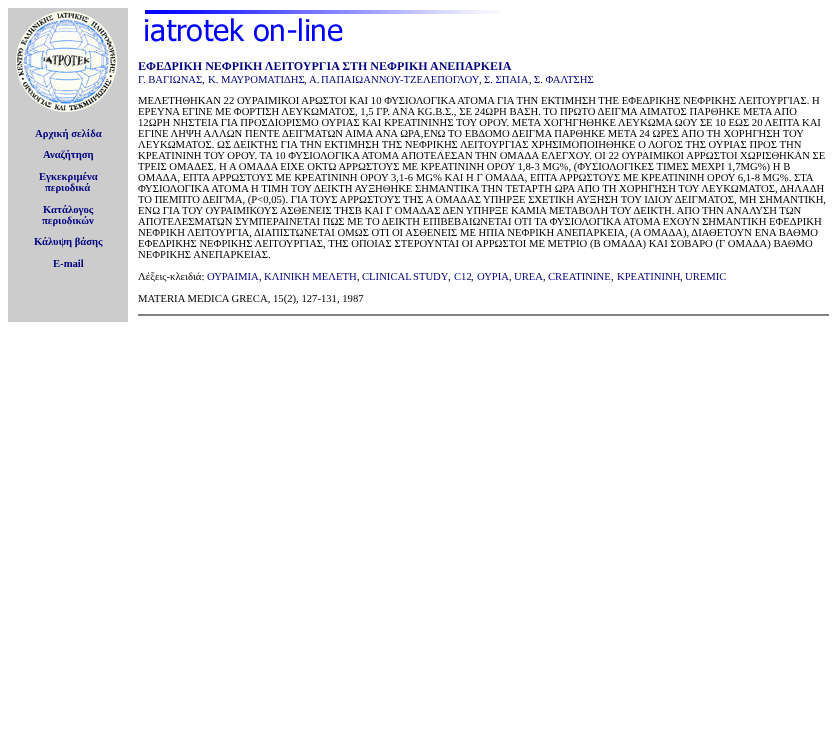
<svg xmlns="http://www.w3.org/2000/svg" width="837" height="736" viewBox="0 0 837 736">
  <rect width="100%" height="100%" fill="rgb(255,255,255)"/>
  <rect x="8" y="8" width="120" height="314" fill="rgb(204,204,204)"/>
  <image x="145" y="10" width="356" height="32" href="pic1.png"/>
  <text x="138" y="70" font-family="Liberation Serif" font-size="12" font-weight="bold" fill="rgb(0,0,128)">ΕΦΕΔΡΙΚΗ ΝΕΦΡΙΚΗ ΛΕΙΤΟΥΡΓΙΑ ΣΤΗ ΝΕΦΡΙΚΗ ΑΝΕΠΑΡΚΕΙΑ</text>
  <text x="138" y="83" font-family="Liberation Serif" font-size="10.67" fill="rgb(0,0,128)">Γ. ΒΑΓΙΩΝΑΣ</text>
  <text x="202" y="83" font-family="Liberation Serif" font-size="10.67" fill="rgb(0,0,0)">,</text>
  <text x="208" y="83" font-family="Liberation Serif" font-size="10.67" fill="rgb(0,0,128)">Κ. ΜΑΥΡΟΜΑΤΙΔΗΣ</text>
  <text x="304" y="83" font-family="Liberation Serif" font-size="10.67" fill="rgb(0,0,0)">,</text>
  <text x="309" y="83" word-spacing="-1" font-family="Liberation Serif" font-size="10.67" fill="rgb(0,0,128)">Α. ΠΑΠΑΙΩΑΝΝΟΥ-ΤΖΕΛΕΠΟΓΛΟΥ</text>
  <text x="479" y="83" font-family="Liberation Serif" font-size="10.67" fill="rgb(0,0,0)">,</text>
  <text x="484" y="83" font-family="Liberation Serif" font-size="10.67" fill="rgb(0,0,128)">Σ. ΣΠΑΙΑ</text>
  <text x="529" y="83" font-family="Liberation Serif" font-size="10.67" fill="rgb(0,0,0)">,</text>
  <text x="534" y="83" font-family="Liberation Serif" font-size="10.67" fill="rgb(0,0,128)">Σ. ΦΑΛΤΣΗΣ</text>
  <g font-family="Liberation Serif" font-size="10.67" fill="rgb(0,0,0)">
    <text>
      <tspan x="138" y="104">ΜΕΛΕΤΗΘΗΚΑΝ 22 ΟΥΡΑΙΜΙΚΟΙ ΑΡΩΣΤΟΙ ΚΑΙ 10 ΦΥΣΙΟΛΟΓΙΚΑ ΑΤΟΜΑ ΓΙΑ ΤΗΝ ΕΚΤΙΜΗΣΗ ΤΗΕ ΕΦΕΔΡΙΚΗΣ ΝΕΦΡΙΚΗΣ ΛΕΙΤΟΥΡΓΙΑΣ. Η</tspan>
      <tspan x="138" y="115">ΕΡΕΥΝΑ ΕΓΙΝΕ ΜΕ ΦΟΡΤΙΣΗ ΛΕΥΚΩΜΑΤΟΣ, 1,5 ΓΡ. ΑΝΑ KG.Β.Σ., ΣΕ 24ΩΡΗ ΒΑΣΗ. ΤΟ ΠΡΩΤΟ ΔΕΙΓΜΑ ΑΙΜΑΤΟΣ ΠΑΡΘΗΚΕ ΜΕΤΑ ΑΠΟ</tspan>
      <tspan x="138" y="126">12ΩΡΗ ΝΗΣΤΕΙΑ ΓΙΑ ΠΡΟΣΔΙΟΡΙΣΜΟ ΟΥΡΙΑΣ ΚΑΙ ΚΡΕΑΤΙΝΙΝΗΣ ΤΟΥ ΟΡΟΥ. ΜΕΤΑ ΧΟΓΗΓΗΘΗΚΕ ΛΕΥΚΩΜΑ ΩΟΥ ΣΕ 10 ΕΩΣ 20 ΛΕΠΤΑ ΚΑΙ</tspan>
      <tspan x="138" y="137">ΕΓΙΝΕ ΛΗΨΗ ΑΛΛΩΝ ΠΕΝΤΕ</tspan>
    </text>
    <text x="282" y="137">ΔΕΙΓΜΑΤΩΝ ΑΙΜΑ ΑΝΑ ΩΡΑ,ΕΝΩ ΤΟ ΕΒΔΟΜΟ ΔΕΙΓΜΑ ΠΑΡΘΗΚΕ ΜΕΤΑ 24 ΩΡΕΣ</text>
    <text x="681" y="137">ΑΠΟ ΤΗ ΧΟΡΗΓΗΣΗ ΤΟΥ</text>
    <text>
      <tspan x="138" y="148">ΛΕΥΚΩΜΑΤΟΣ. ΩΣ ΔΕΙΚΤΗΣ ΓΙΑ ΤΗΝ ΕΚΤΙΜΗΣΗ ΤΗΣ ΝΕΦΡΙΚΗΣ ΛΕΙΤΟΥΡΓΙΑΣ ΧΡΗΣΙΜΟΠΟΙΗΘΗΚΕ Ο ΛΟΓΟΣ ΤΗΣ ΟΥΡΙΑΣ ΠΡΟΣ ΤΗΝ</tspan>
      <tspan x="138" y="159">ΚΡΕΑΤΙΝΙΝΗ ΤΟΥ ΟΡΟΥ. ΤΑ 10 ΦΥΣΙΟΛΟΓΙΚΑ ΑΤΟΜΑ ΑΠΟΤΕΛΕΣΑΝ ΤΗΝ ΟΜΑΔΑ ΕΛΕΓΧΟΥ. ΟΙ 22 ΟΥΡΑΙΜΙΚΟΙ ΑΡΡΩΣΤΟΙ ΧΩΡΙΣΘΗΚΑΝ ΣΕ</tspan>
      <tspan x="138" y="170">ΤΡΕΙΣ ΟΜΑΔΕΣ. Η</tspan>
    </text>
    <text x="229" y="170">Α ΟΜΑΔΑ ΕΙΧΕ ΟΚΤΩ ΑΡΡΩΣΤΟΥΣ ΜΕ ΚΡΕΑΤΙΝΙΝΗ ΟΡΟΥ 1,8-3 MG%, (ΦΥΣΙΟΛΟΓΙΚΕΣ ΤΙΜΕΣ ΜΕΧΡΙ 1,7MG%) H B</text>
    <text x="138" y="181">ΟΜΑΔΑ, ΕΠΤΑ ΑΡΡΩΣΤΟΥΣ ΜΕ ΚΡΕΑΤΙΝΙΝΗ ΟΡΟΥ 3,1-6 MG% ΚΑΙ Η Γ ΟΜΑΔΑ, ΕΠΤΑ ΑΡΡΩΣΤΟΥΣ ΜΕ</text>
    <text x="641" y="181">ΚΡΕΑΤΙΝΙΝΗ ΟΡΟΥ 6,1-8 MG%. ΣΤΑ</text>
    <text x="138" y="192">ΦΥΣΙΟΛΟΓΙΚΑ ΑΤΟΜΑ Η ΤΙΜΗ ΤΟΥ</text>
    <text x="314" y="192">ΔΕΙΚΤΗ ΑΥΞΗΘΗΚΕ ΣΗΜΑΝΤΙΚΑ ΤΗΝ ΤΕΤΑΡΤΗ ΩΡΑ ΑΠΟ ΤΗ ΧΟΡΗΓΗΣΗ ΤΟΥ ΛΕΥΚΩΜΑΤΟΣ, ΔΗΛΑΔΗ</text>
    <text>
      <tspan x="138" y="203">ΤΟ ΠΕΜΠΤΟ ΔΕΙΓΜΑ, (P&lt;0,05). ΓΙΑ ΤΟΥΣ ΑΡΡΩΣΤΟΥΣ ΤΗΣ Α ΟΜΑΔΑΣ ΥΠΗΡΞΕ ΣΧΕΤΙΚΗ ΑΥΞΗΣΗ ΤΟΥ ΙΔΙΟΥ ΔΕΙΓΜΑΤΟΣ, ΜΗ ΣΗΜΑΝΤΙΚΗ,</tspan>
      <tspan x="138" y="214">ΕΝΩ ΓΙΑ ΤΟΥ ΟΥΡΑΙΜΙΚΟΥΣ ΑΣΘΕΝΕΙΣ ΤΗΣΒ ΚΑΙ Γ ΟΜΑΔΑΣ ΔΕΝ ΥΠΗΡΞΕ ΚΑΜΙΑ ΜΕΤΑΒΟΛΗ ΤΟΥ ΔΕΙΚΤΗ. ΑΠΟ ΤΗΝ ΑΝΑΛΥΣΗ ΤΩΝ</tspan>
      <tspan x="138" y="225">ΑΠΟΤΕΛΕΣΜΑΤΩΝ ΣΥΜΠΕΡΑΙΝΕΤΑΙ ΠΩΣ ΜΕ ΤΟ ΔΕΙΚΤΗ ΕΠΙΒΕΒΑΙΩΝΕΤΑΙ ΟΤΙ ΤΑ ΦΥΣΙΟΛΟΓΙΚΑ ΑΤΟΜΑ ΕΧΟΥΝ ΣΗΜΑΝΤΙΚΗ ΕΦΕΔΡΙΚΗ</tspan>
      <tspan x="138" y="236">ΝΕΦΡΙΚΗ ΛΕΙΤΟΥΡΓΙΑ,</tspan>
    </text>
    <text x="254" y="236">ΔΙΑΠΙΣΤΩΝΕΤΑΙ ΟΜΩΣ ΟΤΙ ΟΙ ΑΣΘΕΝΕΙΣ ΜΕ ΗΠΙΑ ΝΕΦΡΙΚΗ ΑΝΕΠΑΡΚΕΙΑ, (Α ΟΜΑΔΑ), ΔΙΑΘΕΤΟΥΝ ΕΝΑ ΒΑΘΜΟ</text>
    <text>
      <tspan x="138" y="247">ΕΦΕΔΡΙΚΗΣ ΝΕΦΡΙΚΗΣ ΛΕΙΤΟΥΡΓΙΑΣ, ΤΗΣ ΟΠΟΙΑΣ ΣΤΕΡΟΥΝΤΑΙ ΟΙ ΑΡΡΩΣΤΟΙ ΜΕ ΜΕΤΡΙΟ (Β ΟΜΑΔΑ) ΚΑΙ ΣΟΒΑΡΟ (Γ ΟΜΑΔΑ) ΒΑΘΜΟ</tspan>
      <tspan x="138" y="258">ΝΕΦΡΙΚΗΣ ΑΝΕΠΑΡΚΕΙΑΣ.</tspan>
    </text>
    <text x="138" y="280">Λέξεις-κλειδιά:</text>
  </g>
  <text x="207" y="280" font-family="Liberation Serif" font-size="10.67" fill="rgb(0,0,128)">ΟΥΡΑΙΜΙΑ</text>
  <text x="259" y="280" font-family="Liberation Serif" font-size="10.67" fill="rgb(0,0,0)">,</text>
  <text x="264" y="280" font-family="Liberation Serif" font-size="10.67" fill="rgb(0,0,128)">ΚΛΙΝΙΚΗ ΜEΛΕΤΗ</text>
  <text x="357" y="280" font-family="Liberation Serif" font-size="10.67" fill="rgb(0,0,0)">,</text>
  <text x="362" y="280" word-spacing="-1" font-family="Liberation Serif" font-size="10.67" fill="rgb(0,0,128)">CLINICAL STUDY</text>
  <text x="448" y="280" font-family="Liberation Serif" font-size="10.67" fill="rgb(0,0,0)">,</text>
  <text x="454" y="280" font-family="Liberation Serif" font-size="10.67" fill="rgb(0,0,128)">C12</text>
  <text x="471" y="280" font-family="Liberation Serif" font-size="10.67" fill="rgb(0,0,0)">,</text>
  <text x="477" y="280" font-family="Liberation Serif" font-size="10.67" fill="rgb(0,0,128)">ΟΥΡΙΑ</text>
  <text x="509" y="280" font-family="Liberation Serif" font-size="10.67" fill="rgb(0,0,0)">,</text>
  <text x="514" y="280" font-family="Liberation Serif" font-size="10.67" fill="rgb(0,0,128)">UREA</text>
  <text x="543" y="280" font-family="Liberation Serif" font-size="10.67" fill="rgb(0,0,0)">,</text>
  <text x="548" y="280" font-family="Liberation Serif" font-size="10.67" fill="rgb(0,0,128)">CREATININE</text>
  <text x="611" y="280" font-family="Liberation Serif" font-size="10.67" fill="rgb(0,0,0)">,</text>
  <text x="617" y="280" font-family="Liberation Serif" font-size="10.67" fill="rgb(0,0,128)">ΚΡΕΑΤΙΝΙΝΗ</text>
  <text x="680" y="280" font-family="Liberation Serif" font-size="10.67" fill="rgb(0,0,0)">,</text>
  <text x="685" y="280" font-family="Liberation Serif" font-size="10.67" fill="rgb(0,0,128)">UREMIC</text>
  <text x="138" y="302" font-family="Liberation Serif" font-size="10.67" fill="rgb(0,0,0)">MATERIA MEDICA GRECA, 15(2), 127-131, 1987</text>
  <rect x="138" y="314" width="691" height="2" fill="rgb(128,128,128)"/>
  <image x="16" y="11" width="101" height="101" href="pic2.png"/>
  <g font-family="Liberation Serif" font-size="10.67" font-weight="bold" fill="rgb(0,0,128)">
    <text x="35" y="137">Αρχική σελίδα</text>
    <text x="43" y="158">Αναζήτηση</text>
    <text x="39" y="180">Εγκεκριμένα</text>
    <text x="45" y="191">περιοδικά</text>
    <text x="43" y="213">Κατάλογος</text>
    <text x="42" y="224">περιοδικών</text>
    <text x="34" y="245">Κάλυψη βάσης</text>
    <text x="53" y="267">E-mail</text>
  </g>
</svg>
